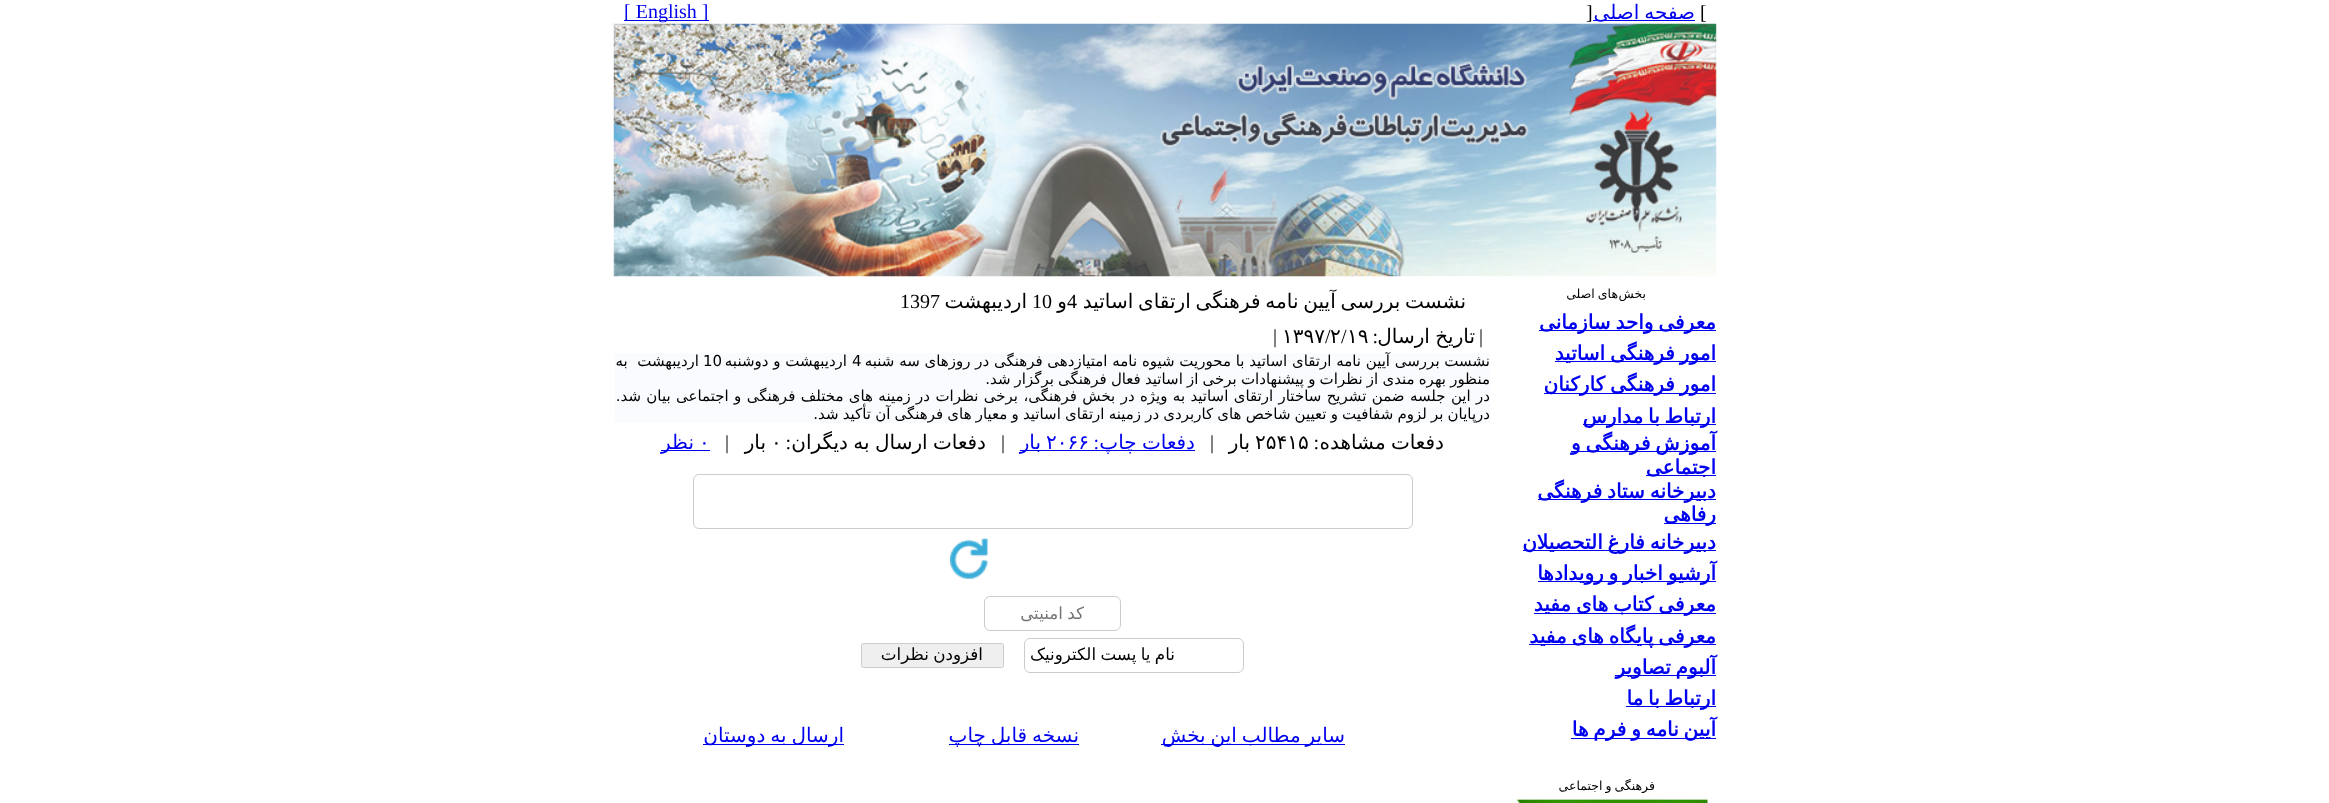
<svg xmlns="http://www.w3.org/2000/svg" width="2329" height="803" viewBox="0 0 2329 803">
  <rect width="100%" height="100%" fill="rgb(255,255,255)"/>
  <text x="1700" y="19" font-family="Liberation Serif" font-size="20" fill="rgb(0,0,0)">[</text>
  <rect x="1593" y="20" width="102" height="1" fill="rgb(0,0,238)"/>
  <text x="1695" y="19" word-spacing="-1.5" font-family="DejaVu Sans" font-size="20" direction="rtl" fill="rgb(0,0,238)">صفحه اصلی</text>
  <text x="1586" y="19" font-family="Liberation Serif" font-size="20" fill="rgb(0,0,0)">]</text>
  <rect x="624" y="20" width="85" height="1" fill="rgb(0,0,238)"/>
  <text x="624" y="18" font-family="Liberation Serif" font-size="20" fill="rgb(0,0,238)">[ English ]</text>
  <image x="613" y="23" width="1104" height="254" href="pic1.png"/>
  <g font-family="DejaVu Sans" font-size="12.5" direction="rtl" fill="rgb(0,0,0)">
    <text x="1646" y="298">بخش</text>
    <text x="1618" y="298" word-spacing="-1">های اصلی</text>
  </g>
  <rect x="1539" y="330" width="177" height="1" fill="rgb(0,0,238)"/>
  <text x="1716" y="329" word-spacing="-1.5" font-family="DejaVu Sans" font-size="20" font-weight="bold" direction="rtl" fill="rgb(0,0,238)">معرفی واحد سازمانی</text>
  <rect x="1555" y="361" width="161" height="1" fill="rgb(0,0,238)"/>
  <text x="1716" y="360" word-spacing="-1.5" font-family="DejaVu Sans" font-size="20" font-weight="bold" direction="rtl" fill="rgb(0,0,238)">امور فرهنگی اساتید</text>
  <rect x="1544" y="393" width="172" height="1" fill="rgb(0,0,238)"/>
  <text x="1716" y="391" word-spacing="-1.5" font-family="DejaVu Sans" font-size="20" font-weight="bold" direction="rtl" fill="rgb(0,0,238)">امور فرهنگی کارکنان</text>
  <rect x="1583" y="424" width="133" height="1" fill="rgb(0,0,238)"/>
  <text x="1716" y="423" word-spacing="-1.5" font-family="DejaVu Sans" font-size="20" font-weight="bold" direction="rtl" fill="rgb(0,0,238)">ارتباط با مدارس</text>
  <rect x="1571" y="451" width="145" height="1" fill="rgb(0,0,238)"/>
  <text x="1716" y="450" word-spacing="-1.5" font-family="DejaVu Sans" font-size="20" font-weight="bold" direction="rtl" fill="rgb(0,0,238)">آموزش فرهنگی و</text>
  <rect x="1646" y="475" width="70" height="1" fill="rgb(0,0,238)"/>
  <text x="1716" y="474" font-family="DejaVu Sans" font-size="20" font-weight="bold" direction="rtl" fill="rgb(0,0,238)">اجتماعی</text>
  <rect x="1538" y="499" width="178" height="1" fill="rgb(0,0,238)"/>
  <text x="1716" y="498" word-spacing="-1.5" font-family="DejaVu Sans" font-size="20" font-weight="bold" direction="rtl" fill="rgb(0,0,238)">دبیرخانه ستاد فرهنگی</text>
  <rect x="1664" y="523" width="52" height="1" fill="rgb(0,0,238)"/>
  <text x="1716" y="521" font-family="DejaVu Sans" font-size="20" font-weight="bold" direction="rtl" fill="rgb(0,0,238)">رفاهی</text>
  <rect x="1523" y="550" width="193" height="1" fill="rgb(0,0,238)"/>
  <text x="1716" y="549" word-spacing="-1.5" font-family="DejaVu Sans" font-size="20" font-weight="bold" direction="rtl" fill="rgb(0,0,238)">دبیرخانه فارغ التحصیلان</text>
  <rect x="1538" y="581" width="178" height="1" fill="rgb(0,0,238)"/>
  <text x="1716" y="580" word-spacing="-1.5" font-family="DejaVu Sans" font-size="20" font-weight="bold" direction="rtl" fill="rgb(0,0,238)">آرشیو اخبار و رویدادها</text>
  <rect x="1534" y="613" width="182" height="1" fill="rgb(0,0,238)"/>
  <text x="1716" y="611" word-spacing="-1.5" font-family="DejaVu Sans" font-size="20" font-weight="bold" direction="rtl" fill="rgb(0,0,238)">معرفی کتاب های مفید</text>
  <rect x="1529" y="644" width="187" height="1" fill="rgb(0,0,238)"/>
  <text x="1716" y="643" word-spacing="-1.5" font-family="DejaVu Sans" font-size="20" font-weight="bold" direction="rtl" fill="rgb(0,0,238)">معرفی پایگاه های مفید</text>
  <rect x="1615" y="675" width="101" height="1" fill="rgb(0,0,238)"/>
  <text x="1716" y="674" word-spacing="-1.5" font-family="DejaVu Sans" font-size="20" font-weight="bold" direction="rtl" fill="rgb(0,0,238)">آلبوم تصاویر</text>
  <rect x="1626" y="706" width="90" height="1" fill="rgb(0,0,238)"/>
  <text x="1716" y="705" word-spacing="-1.5" font-family="DejaVu Sans" font-size="20" font-weight="bold" direction="rtl" fill="rgb(0,0,238)">ارتباط با ما</text>
  <rect x="1571" y="738" width="145" height="1" fill="rgb(0,0,238)"/>
  <text x="1716" y="736" word-spacing="-1.5" font-family="DejaVu Sans" font-size="20" font-weight="bold" direction="rtl" fill="rgb(0,0,238)">آیین نامه و فرم ها</text>
  <text x="1655" y="790" word-spacing="-1" font-family="DejaVu Sans" font-size="12.5" direction="rtl" fill="rgb(0,0,0)">فرهنگی و اجتماعی</text>
  <image x="1513" y="799" width="195" height="4" href="pic2.png"/>
  <text x="1466" y="308" word-spacing="-1.5" font-family="DejaVu Sans" font-size="20" direction="rtl" fill="rgb(0,0,0)">نشست بررسی آیین نامه فرهنگی ارتقای اساتید</text>
  <text x="1067" y="308" font-family="Liberation Serif" font-size="20" fill="rgb(0,0,0)">4</text>
  <text x="1067" y="308" font-family="DejaVu Sans" font-size="20" direction="rtl" fill="rgb(0,0,0)">و</text>
  <text x="1032" y="308" font-family="Liberation Serif" font-size="20" fill="rgb(0,0,0)">10</text>
  <text x="1027" y="308" font-family="DejaVu Sans" font-size="20" direction="rtl" fill="rgb(0,0,0)">اردیبهشت</text>
  <text x="900" y="308" font-family="Liberation Serif" font-size="20" fill="rgb(0,0,0)">1397</text>
  <text x="1483" y="343" font-family="Liberation Serif" font-size="20" direction="rtl" fill="rgb(0,0,0)">|</text>
  <text x="1475" y="343" word-spacing="-1" font-family="DejaVu Sans" font-size="20" direction="rtl" fill="rgb(0,0,0)">تاریخ ارسال</text>
  <text x="1378" y="343" font-family="Liberation Serif" font-size="20" direction="rtl" fill="rgb(0,0,0)">:</text>
  <text x="1347" y="343" font-family="DejaVu Sans" font-size="20" fill="rgb(0,0,0)">۱۹</text>
  <text x="1341" y="343" font-family="Liberation Serif" font-size="20" fill="rgb(0,0,0)">/</text>
  <g font-family="DejaVu Sans" font-size="20" fill="rgb(0,0,0)">
    <text x="1330" y="343">۲</text>
    <text x="1282" y="343">۱۳۹۷</text>
  </g>
  <g font-family="Liberation Serif" font-size="20" fill="rgb(0,0,0)">
    <text x="1325" y="343">/</text>
    <text x="1273" y="343">|</text>
  </g>
  <rect x="615" y="353" width="875" height="70" fill="rgb(250,251,254)"/>
  <text x="1490" y="366" font-family="DejaVu Sans" font-size="15" direction="rtl" fill="rgb(0,0,0)">نشست بررسی آیین نامه ارتقای اساتید با محوریت شیوه نامه امتیازدهی فرهنگی در روزهای سه شنبه</text>
  <text x="852" y="366" font-family="DejaVu Sans" font-size="15" fill="rgb(0,0,0)">4</text>
  <text x="847" y="366" font-family="DejaVu Sans" font-size="15" direction="rtl" fill="rgb(0,0,0)">اردیبهشت و دوشنبه</text>
  <text x="703" y="366" font-family="DejaVu Sans" font-size="15" fill="rgb(0,0,0)">10</text>
  <g font-family="DejaVu Sans" font-size="15" direction="rtl" fill="rgb(0,0,0)">
    <text x="699" y="366" xml:space="preserve">اردیبهشت  به</text>
    <text>
      <tspan x="1490" y="384" word-spacing="-0.6">منظور بهره مندی از نظرات و پیشنهادات برخی از اساتید فعال فرهنگی برگزار شد.</tspan>
      <tspan x="1490" y="401" word-spacing="0.6">در این جلسه ضمن تشریح ساختار ارتقای اساتید به ویژه در بخش فرهنگی، برخی نظرات در زمینه های مختلف فرهنگی و اجتماعی بیان شد.</tspan>
      <tspan x="1490" y="419" word-spacing="-0.6">درپایان بر لزوم شفافیت و تعیین شاخص های کاربردی در زمینه ارتقای اساتید و معیار های فرهنگی آن تأکید شد.</tspan>
    </text>
  </g>
  <text x="1444" y="449" word-spacing="-1" font-family="DejaVu Sans" font-size="20" direction="rtl" fill="rgb(0,0,0)">دفعات مشاهده</text>
  <text x="1319" y="449" font-family="Liberation Serif" font-size="20" direction="rtl" fill="rgb(0,0,0)">:</text>
  <text x="1255" y="449" font-family="DejaVu Sans" font-size="20" fill="rgb(0,0,0)">۲۵۴۱۵</text>
  <text x="1250" y="449" font-family="DejaVu Sans" font-size="20" direction="rtl" fill="rgb(0,0,0)">بار</text>
  <text x="1214" y="449" font-family="Liberation Serif" font-size="20" direction="rtl" fill="rgb(0,0,0)">|</text>
  <rect x="1020" y="450" width="175" height="1" fill="rgb(0,0,238)"/>
  <text x="1195" y="449" word-spacing="-1" font-family="DejaVu Sans" font-size="20" direction="rtl" fill="rgb(0,0,238)">دفعات چاپ</text>
  <text x="1099" y="449" font-family="Liberation Serif" font-size="20" direction="rtl" fill="rgb(0,0,238)">:</text>
  <text x="1046" y="449" font-family="DejaVu Sans" font-size="20" fill="rgb(0,0,238)">۲۰۶۶</text>
  <text x="1041" y="449" font-family="DejaVu Sans" font-size="20" direction="rtl" fill="rgb(0,0,238)">بار</text>
  <text x="1001" y="449" font-family="Liberation Serif" font-size="20" fill="rgb(0,0,0)">|</text>
  <text x="986" y="449" word-spacing="-1" font-family="DejaVu Sans" font-size="20" direction="rtl" fill="rgb(0,0,0)">دفعات ارسال به دیگران</text>
  <text x="791" y="449" font-family="Liberation Serif" font-size="20" direction="rtl" fill="rgb(0,0,0)">:</text>
  <text x="771" y="449" font-family="DejaVu Sans" font-size="20" fill="rgb(0,0,0)">۰</text>
  <text x="766" y="449" font-family="DejaVu Sans" font-size="20" direction="rtl" fill="rgb(0,0,0)">بار</text>
  <text x="729" y="449" font-family="Liberation Serif" font-size="20" direction="rtl" fill="rgb(0,0,0)">|</text>
  <text x="699" y="449" font-family="DejaVu Sans" font-size="20" fill="rgb(0,0,238)">۰</text>
  <rect x="661" y="450" width="49" height="1" fill="rgb(0,0,238)"/>
  <text x="694" y="449" font-family="DejaVu Sans" font-size="20" direction="rtl" fill="rgb(0,0,238)">نظر</text>
  <rect x="693.5" y="474.5" width="719" height="54" rx="5.5" fill="none" stroke="rgb(204,204,204)"/>
  <image x="950" y="538" width="38" height="41" href="pic3.png"/>
  <rect x="984.5" y="596.5" width="136" height="34" rx="5.5" fill="none" stroke="rgb(204,204,204)"/>
  <text x="1084" y="619" word-spacing="-1" font-family="DejaVu Sans" font-size="16.75" direction="rtl" fill="rgb(117,117,117)">کد امنیتی</text>
  <rect x="1024.5" y="638.5" width="219" height="34" rx="5.5" fill="none" stroke="rgb(204,204,204)"/>
  <text x="1175" y="660" word-spacing="-1" font-family="DejaVu Sans" font-size="16.75" direction="rtl" fill="rgb(0,0,0)">نام یا پست الکترونیک</text>
  <rect x="861.5" y="643.5" width="142" height="24" rx="2" fill="rgb(239,239,239)" stroke="rgb(204,204,204)"/>
  <text x="983" y="660" word-spacing="-1" font-family="DejaVu Sans" font-size="16.75" direction="rtl" fill="rgb(0,0,0)">افزودن نظرات</text>
  <rect x="1161" y="744" width="184" height="1" fill="rgb(0,0,238)"/>
  <text x="1345" y="742" word-spacing="-1.5" font-family="DejaVu Sans" font-size="20" direction="rtl" fill="rgb(0,0,238)">سایر مطالب این بخش</text>
  <rect x="949" y="744" width="130" height="1" fill="rgb(0,0,238)"/>
  <text x="1079" y="742" word-spacing="-1.5" font-family="DejaVu Sans" font-size="20" direction="rtl" fill="rgb(0,0,238)">نسخه قابل چاپ</text>
  <rect x="703" y="744" width="141" height="1" fill="rgb(0,0,238)"/>
  <text x="844" y="742" word-spacing="-1.5" font-family="DejaVu Sans" font-size="20" direction="rtl" fill="rgb(0,0,238)">ارسال به دوستان</text>
</svg>
